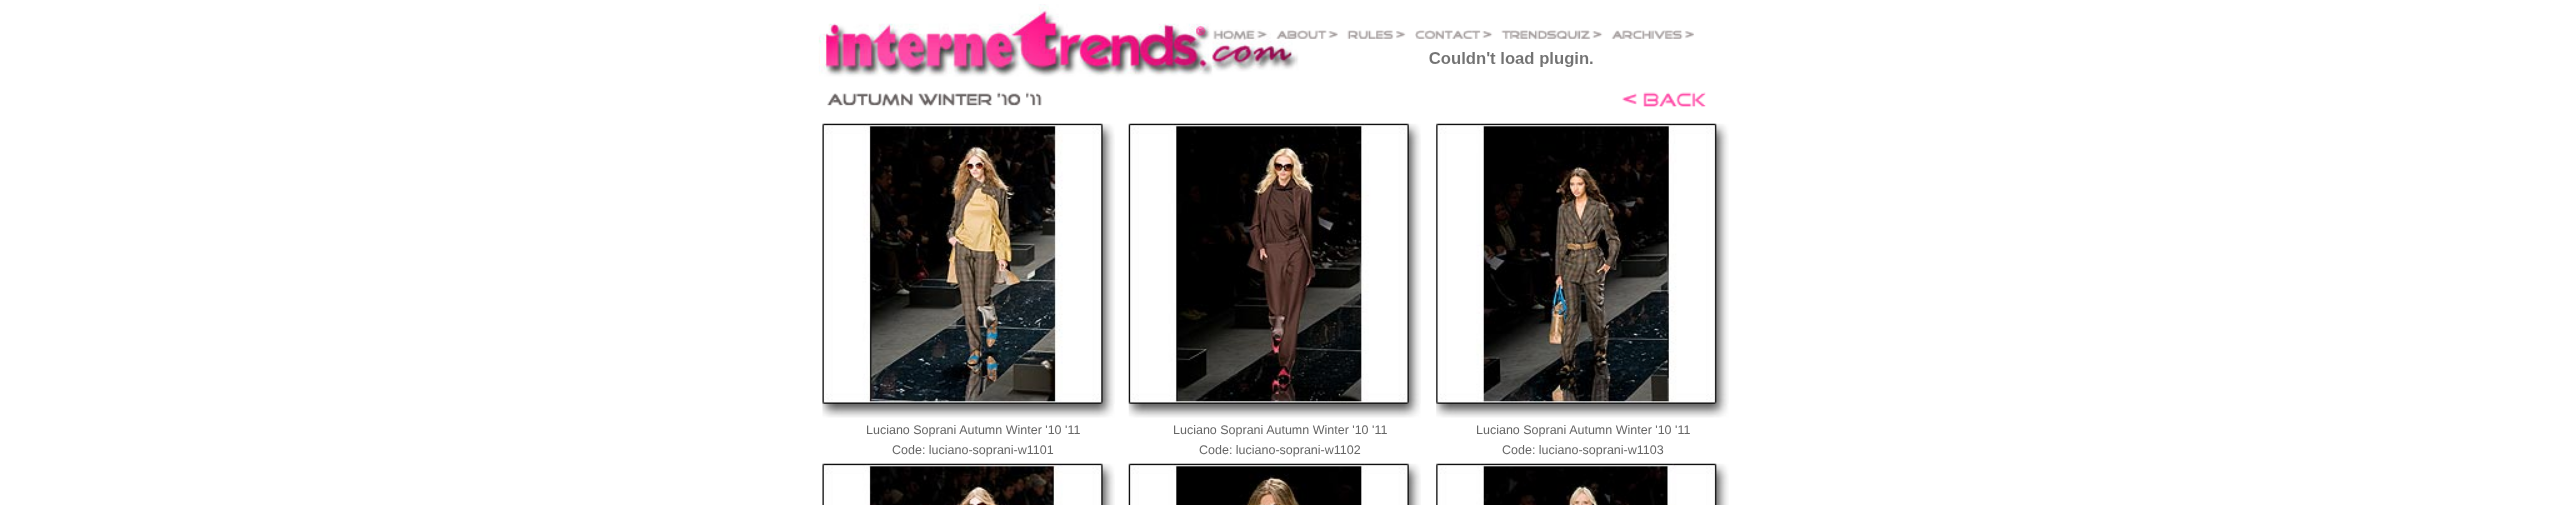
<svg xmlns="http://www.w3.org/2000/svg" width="2552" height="505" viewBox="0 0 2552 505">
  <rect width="100%" height="100%" fill="rgb(255,255,255)"/>
  <image x="818" y="4" width="395" height="73" href="pic1.png"/>
  <image x="1213" y="29" width="58" height="11" href="pic2.png"/>
  <image x="1276" y="30" width="62" height="9" href="pic3.png"/>
  <image x="1347" y="30" width="59" height="9" href="pic4.png"/>
  <image x="1415" y="30" width="78" height="10" href="pic5.png"/>
  <image x="1501" y="30" width="102" height="10" href="pic6.png"/>
  <image x="1611" y="30" width="83" height="10" href="pic7.png"/>
  <image x="1212" y="40" width="87" height="32" href="pic8.png"/>
  <image x="1429" y="52" width="164" height="15" href="pic9.png"/>
  <image x="827" y="92" width="215" height="15" href="pic10.png"/>
  <image x="1622" y="92" width="84" height="15" href="pic11.png"/>
  <image x="822" y="123" width="293" height="295" href="pic12.png"/>
  <image x="1128" y="123" width="293" height="295" href="pic13.png"/>
  <image x="1436" y="123" width="293" height="295" href="pic14.png"/>
  <g font-family="Liberation Sans" font-size="12.5" fill="rgb(102,102,102)">
    <text x="866" y="434">Luciano Soprani Autumn Winter '10 '11</text>
    <text x="892" y="454">Code: luciano-soprani-w1101</text>
    <text x="1173" y="434">Luciano Soprani Autumn Winter '10 '11</text>
    <text x="1199" y="454">Code: luciano-soprani-w1102</text>
    <text x="1476" y="434">Luciano Soprani Autumn Winter '10 '11</text>
    <text x="1502" y="454">Code: luciano-soprani-w1103</text>
  </g>
  <image x="822" y="463" width="293" height="42" href="pic15.png"/>
  <image x="1128" y="463" width="293" height="42" href="pic16.png"/>
  <image x="1436" y="463" width="293" height="42" href="pic17.png"/>
</svg>
